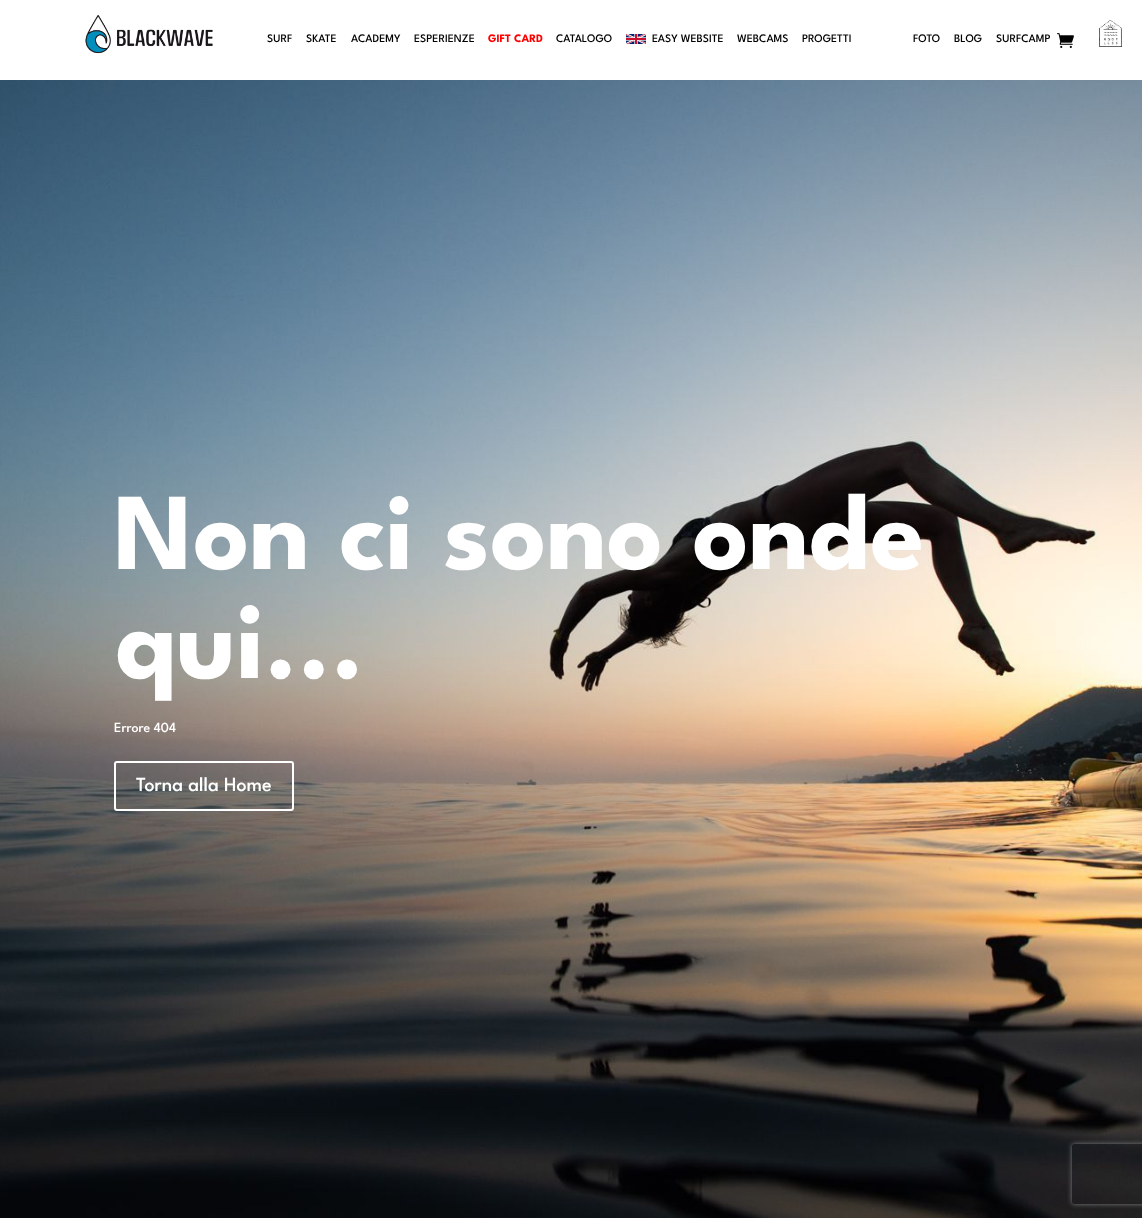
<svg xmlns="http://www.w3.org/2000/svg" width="1142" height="1218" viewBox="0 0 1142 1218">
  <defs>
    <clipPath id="clip1"><path d="M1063 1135H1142V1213H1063ZM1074 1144H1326C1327 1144 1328 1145 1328 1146V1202C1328 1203 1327 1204 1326 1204H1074C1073 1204 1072 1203 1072 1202V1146C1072 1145 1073 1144 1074 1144Z" clip-rule="evenodd"/></clipPath>
  </defs>
  <rect width="100%" height="100%" fill="rgb(255,255,255)"/>
  <image x="85" y="15" width="128" height="39" href="pic1.png"/>
  <g font-family="League Spartan" font-size="11.5" font-weight="500" fill="rgb(0,0,0)">
    <text x="267" y="42">SURF</text>
    <text x="306" y="42">SKATE</text>
    <text x="351" y="42">ACADEMY</text>
    <text x="414" y="42">ESPERIENZE</text>
  </g>
  <text x="488" y="42" font-family="League Spartan" font-size="11.5" font-weight="bold" fill="rgb(255,0,0)">GIFT CARD</text>
  <text x="556" y="42" font-family="League Spartan" font-size="11.5" font-weight="500" fill="rgb(0,0,0)">CATALOGO</text>
  <image x="626" y="34" width="20" height="10" href="pic2.png"/>
  <g font-family="League Spartan" font-size="11.5" font-weight="500" fill="rgb(0,0,0)">
    <text x="652" y="42">EASY WEBSITE</text>
    <text x="737" y="42">WEBCAMS</text>
    <text x="802" y="42">PROGETTI</text>
    <text x="913" y="42">FOTO</text>
    <text x="954" y="42">BLOG</text>
    <text x="996" y="42">SURFCAMP</text>
  </g>
  <image x="1057" y="33" width="17" height="15" href="pic3.png"/>
  <image x="1099" y="20" width="23" height="27" href="pic4.png"/>
  <image x="0" y="80" width="1142" height="1138" href="pic5.png"/>
  <g font-family="League Spartan" font-size="109.5" font-weight="bold" fill="rgb(255,255,255)">
    <text>
      <tspan x="114" y="569">Non ci sono onde</tspan>
      <tspan x="114" y="678">qui...</tspan>
    </text>
  </g>
  <text x="114" y="732" font-family="League Spartan" font-size="14" font-weight="500" fill="rgb(255,255,255)">Errore 404</text>
  <rect x="115" y="762" width="178" height="48" rx="2" fill="none" stroke="rgb(255,255,255)" stroke-width="2"/>
  <text x="136" y="791" font-family="League Spartan" font-size="20" font-weight="500" fill="rgb(255,255,255)">Torna alla Home</text>
  <g clip-path="url(#clip1)">
    <rect x="1072" y="1144" width="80" height="60" rx="2" fill="rgb(128,128,128)" filter="blur(2.5px)"/>
  </g>
</svg>
